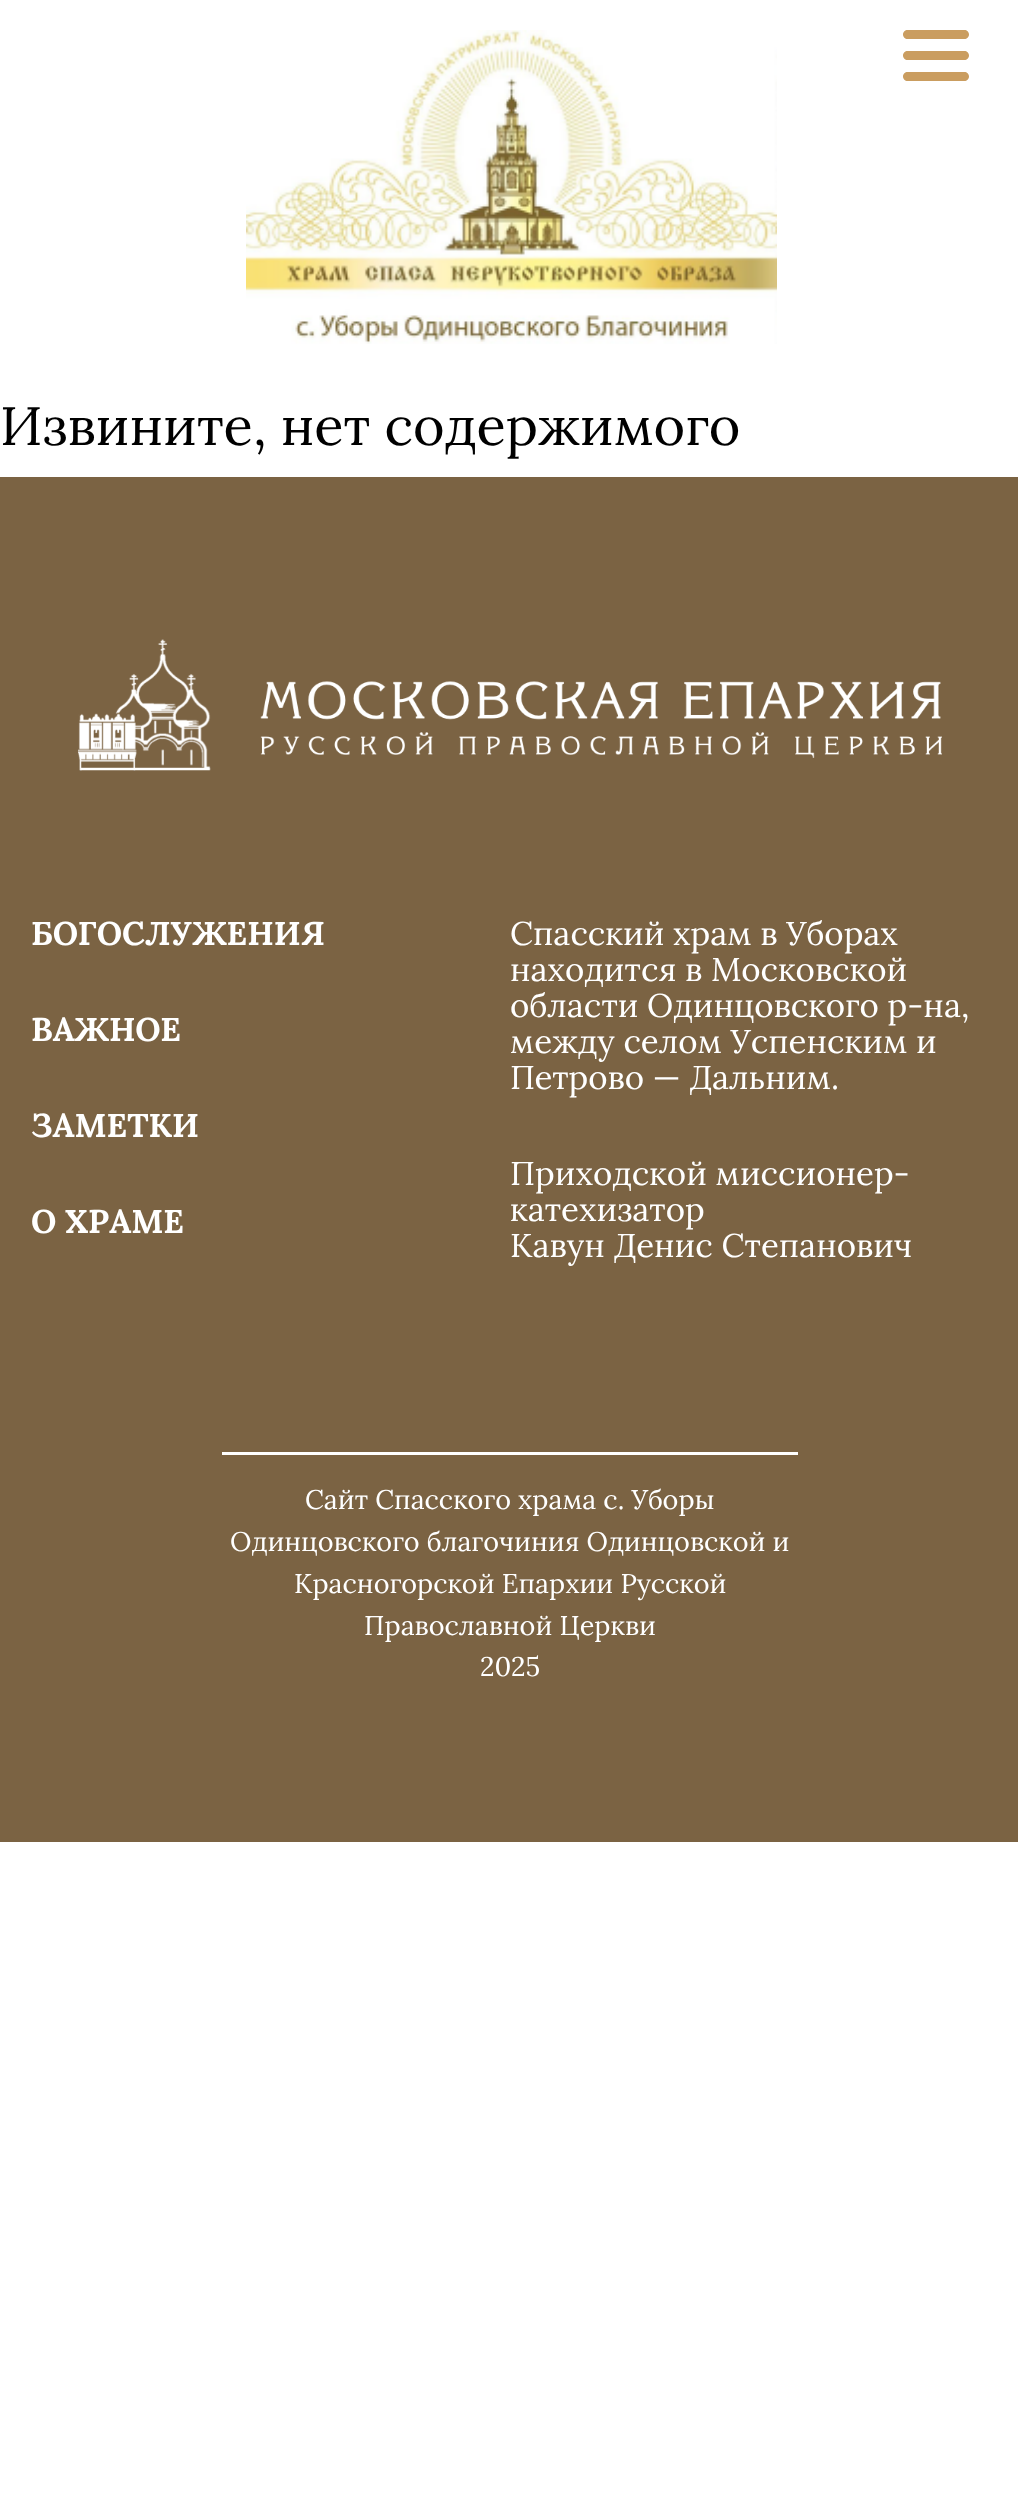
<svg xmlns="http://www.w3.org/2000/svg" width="1018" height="2520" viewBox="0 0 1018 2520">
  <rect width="100%" height="100%" fill="rgb(255,255,255)"/>
  <image x="246" y="30" width="531" height="314" href="pic1.png"/>
  <image x="903" y="30" width="66" height="51" href="pic2.png"/>
  <text x="0" y="445" font-family="Lora" font-size="54" fill="rgb(0,0,0)">Извините, нет содержимого</text>
  <rect x="0" y="477" width="1018" height="1365" fill="rgb(123,99,67)"/>
  <image x="78" y="639" width="864" height="132" href="pic3.png"/>
  <g font-family="Lora" font-size="33" font-weight="bold" fill="rgb(255,255,255)">
    <text x="31" y="945">БОГОСЛУЖЕНИЯ</text>
    <text x="31" y="1041">ВАЖНОЕ</text>
    <text x="31" y="1137">ЗАМЕТКИ</text>
    <text x="31" y="1233">О ХРАМЕ</text>
  </g>
  <g font-family="Lora" font-size="33" fill="rgb(255,255,255)">
    <text>
      <tspan x="510" y="945">Спасский храм в Уборах</tspan>
      <tspan x="510" y="981">находится в Московской</tspan>
      <tspan x="510" y="1017">области Одинцовского р-на,</tspan>
      <tspan x="510" y="1053">между селом Успенским и</tspan>
      <tspan x="510" y="1089">Петрово — Дальним.</tspan>
    </text>
    <text>
      <tspan x="510" y="1185">Приходской миссионер-</tspan>
      <tspan x="510" y="1221">катехизатор</tspan>
      <tspan x="510" y="1257">Кавун Денис Степанович</tspan>
    </text>
  </g>
  <rect x="222" y="1452" width="576" height="3" fill="rgb(255,255,255)"/>
  <g font-family="Lora" font-size="27" fill="rgb(255,255,255)">
    <text x="305" y="1509">Сайт Спасского храма с. Уборы</text>
    <text x="230" y="1551">Одинцовского благочиния Одинцовской и</text>
    <text x="294" y="1593">Красногорской Епархии Русской</text>
    <text x="364" y="1635">Православной Церкви</text>
    <text x="480" y="1676">2025</text>
  </g>
</svg>
